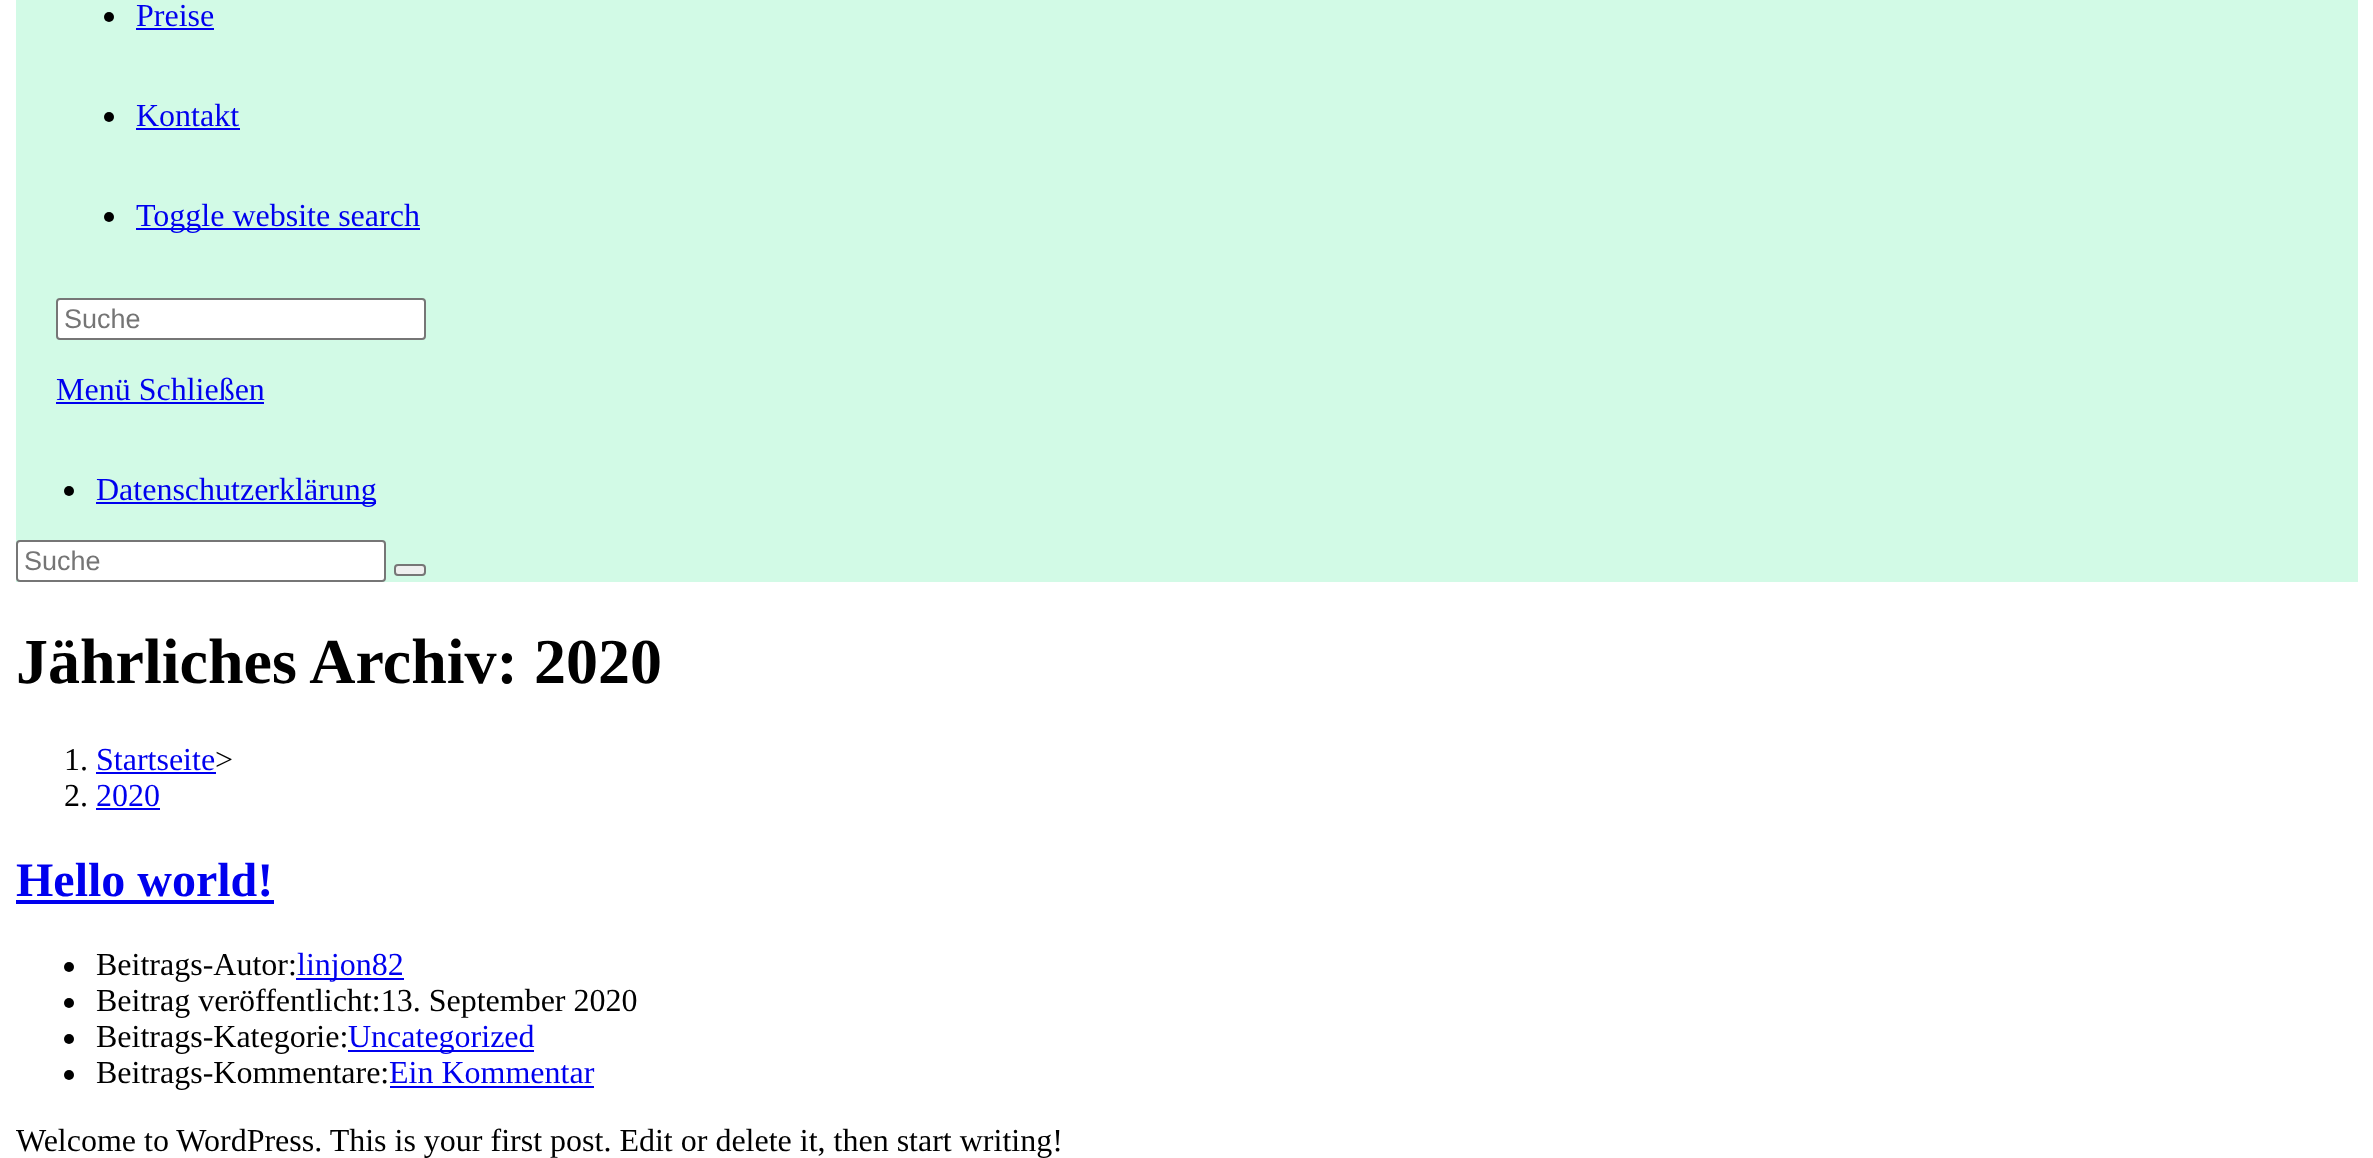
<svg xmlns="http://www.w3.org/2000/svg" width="2373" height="1158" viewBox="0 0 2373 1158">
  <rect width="100%" height="100%" fill="rgb(255,255,255)"/>
  <rect x="16" y="0" width="2342" height="582" fill="rgb(210,250,230)"/>
  <circle cx="109" cy="17" r="5" fill="rgb(0,0,0)"/>
  <text x="136" y="26" font-family="Liberation Serif" font-size="32" fill="rgb(0,0,238)">Preise</text>
  <rect x="136" y="28" width="78" height="2" fill="rgb(0,0,238)"/>
  <circle cx="109" cy="117" r="5" fill="rgb(0,0,0)"/>
  <text x="136" y="126" font-family="Liberation Serif" font-size="32" fill="rgb(0,0,238)">Kontakt</text>
  <rect x="136" y="128" width="104" height="2" fill="rgb(0,0,238)"/>
  <circle cx="109" cy="217" r="5" fill="rgb(0,0,0)"/>
  <rect x="136" y="228" width="284" height="2" fill="rgb(0,0,238)"/>
  <text x="136" y="226" font-family="Liberation Serif" font-size="32" fill="rgb(0,0,238)">Toggle website search</text>
  <rect x="57" y="299" width="368" height="40" rx="3" fill="rgb(255,255,255)" stroke="rgb(118,118,118)" stroke-width="2"/>
  <text x="64" y="328" font-family="Liberation Sans" font-size="27" fill="rgb(117,117,117)">Suche</text>
  <text x="56" y="400" font-family="Liberation Serif" font-size="32" fill="rgb(0,0,238)">Menü Schließen</text>
  <rect x="56" y="402" width="208" height="2" fill="rgb(0,0,238)"/>
  <circle cx="69" cy="491" r="5" fill="rgb(0,0,0)"/>
  <rect x="96" y="502" width="280" height="2" fill="rgb(0,0,238)"/>
  <text x="96" y="500" font-family="Liberation Serif" font-size="32" fill="rgb(0,0,238)">Datenschutzerklärung</text>
  <rect x="17" y="541" width="368" height="40" rx="3" fill="rgb(255,255,255)" stroke="rgb(118,118,118)" stroke-width="2"/>
  <text x="24" y="570" font-family="Liberation Sans" font-size="27" fill="rgb(117,117,117)">Suche</text>
  <rect x="395" y="565" width="30" height="10" rx="3" fill="rgb(239,239,239)" stroke="rgb(118,118,118)" stroke-width="2"/>
  <text x="16" y="683" font-family="Liberation Serif" font-size="64" font-weight="bold" fill="rgb(0,0,0)">Jährliches Archiv: 2020</text>
  <text x="64" y="770" font-family="Liberation Serif" font-size="32" fill="rgb(0,0,0)">1.</text>
  <text x="96" y="770" font-family="Liberation Serif" font-size="32" fill="rgb(0,0,238)">Startseite</text>
  <rect x="96" y="772" width="120" height="2" fill="rgb(0,0,238)"/>
  <g font-family="Liberation Serif" font-size="32" fill="rgb(0,0,0)">
    <text x="215" y="770">&gt;</text>
    <text x="64" y="806">2.</text>
  </g>
  <text x="96" y="806" font-family="Liberation Serif" font-size="32" fill="rgb(0,0,238)">2020</text>
  <rect x="96" y="808" width="64" height="2" fill="rgb(0,0,238)"/>
  <text x="16" y="896" font-family="Liberation Serif" font-size="48" font-weight="bold" fill="rgb(0,0,238)">Hello world!</text>
  <rect x="16" y="900" width="258" height="4" fill="rgb(0,0,238)"/>
  <circle cx="69" cy="967" r="5" fill="rgb(0,0,0)"/>
  <text x="96" y="975" font-family="Liberation Serif" font-size="32" fill="rgb(0,0,0)">Beitrags-Autor:</text>
  <rect x="296" y="978" width="108" height="2" fill="rgb(0,0,238)"/>
  <text x="297" y="975" font-family="Liberation Serif" font-size="32" fill="rgb(0,0,238)">linjon82</text>
  <circle cx="69" cy="1003" r="5" fill="rgb(0,0,0)"/>
  <text x="96" y="1011" font-family="Liberation Serif" font-size="32" fill="rgb(0,0,0)">Beitrag veröffentlicht:13. September 2020</text>
  <circle cx="69" cy="1039" r="5" fill="rgb(0,0,0)"/>
  <text x="96" y="1047" font-family="Liberation Serif" font-size="32" fill="rgb(0,0,0)">Beitrags-Kategorie:</text>
  <rect x="348" y="1050" width="186" height="2" fill="rgb(0,0,238)"/>
  <text x="348" y="1047" font-family="Liberation Serif" font-size="32" fill="rgb(0,0,238)">Uncategorized</text>
  <circle cx="69" cy="1075" r="5" fill="rgb(0,0,0)"/>
  <text x="96" y="1083" font-family="Liberation Serif" font-size="32" fill="rgb(0,0,0)">Beitrags-Kommentare:</text>
  <text x="389" y="1083" font-family="Liberation Serif" font-size="32" fill="rgb(0,0,238)">Ein Kommentar</text>
  <rect x="390" y="1086" width="204" height="2" fill="rgb(0,0,238)"/>
  <text x="16" y="1151" font-family="Liberation Serif" font-size="32" fill="rgb(0,0,0)">Welcome to WordPress. This is your first post. Edit or delete it, then start writing!</text>
</svg>
